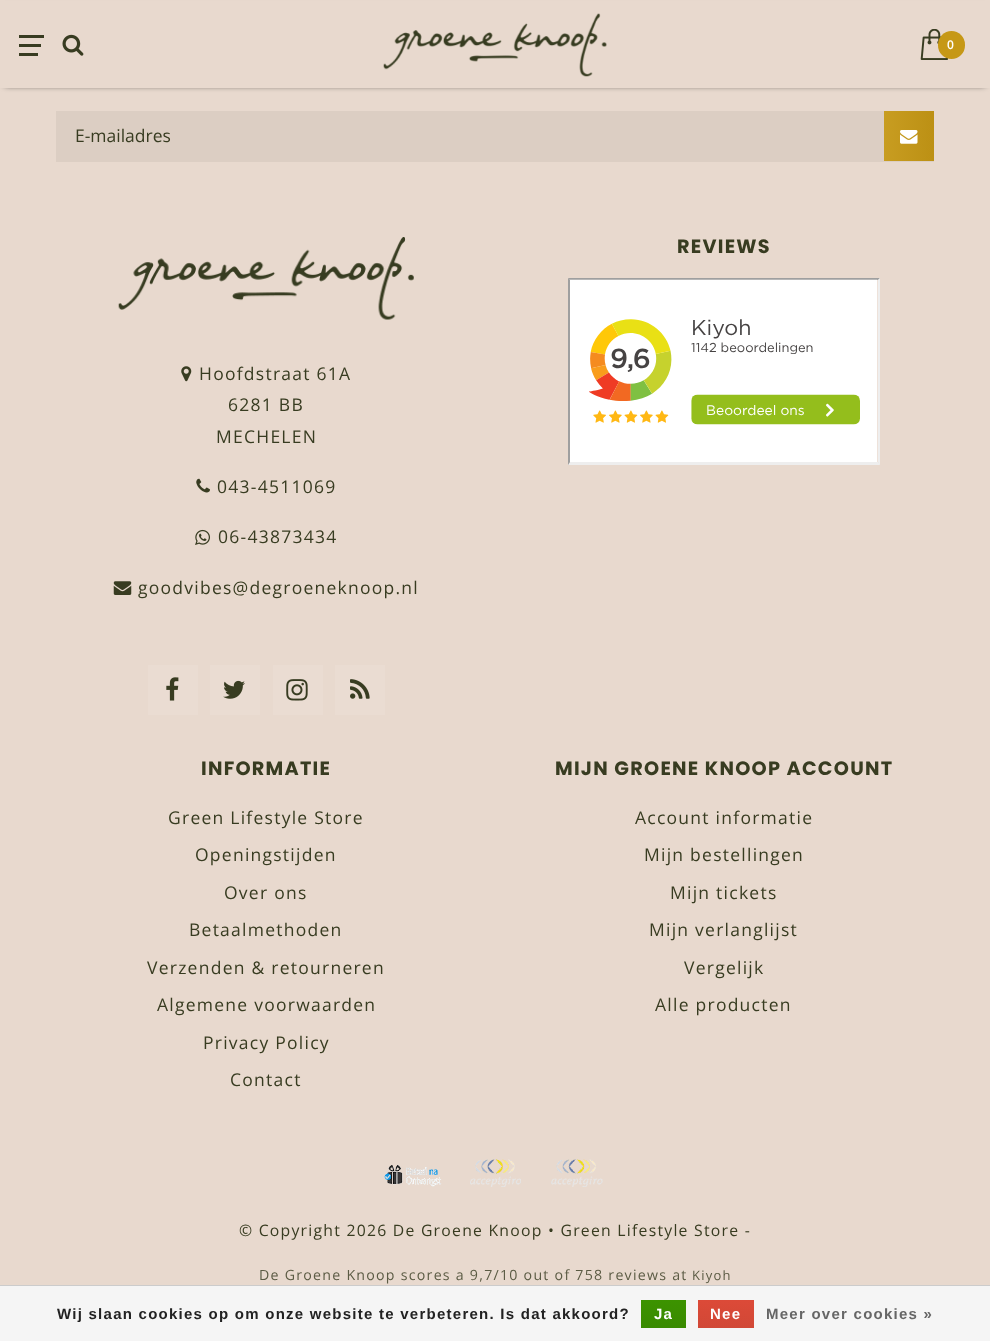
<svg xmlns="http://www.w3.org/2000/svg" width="990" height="1341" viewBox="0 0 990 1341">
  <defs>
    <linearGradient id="g1" gradientUnits="userSpaceOnUse" x1="884" y1="136" x2="934" y2="136"><stop offset="0" stop-color="rgb(200,157,33)"/><stop offset="1" stop-color="rgb(188,144,20)"/></linearGradient>
    <linearGradient id="g2" gradientUnits="userSpaceOnUse" x1="664" y1="1300" x2="664" y2="1328"><stop offset="0" stop-color="rgb(60,147,0)"/><stop offset="1" stop-color="rgb(57,138,0)"/></linearGradient>
    <linearGradient id="g3" gradientUnits="userSpaceOnUse" x1="726" y1="1300" x2="726" y2="1328"><stop offset="0" stop-color="rgb(220,74,56)"/><stop offset="1" stop-color="rgb(209,72,54)"/></linearGradient>
  </defs>
  <rect width="100%" height="100%" fill="rgb(232,217,206)"/>
  <rect x="5" y="8" width="980" height="77" fill="rgb(0,0,0)" filter="blur(3px)"/>
  <rect x="0" y="1" width="990" height="87" fill="rgb(232,217,206)"/>
  <rect x="19" y="35" width="25" height="3" fill="rgb(56,60,33)"/>
  <rect x="19" y="44" width="22" height="3" fill="rgb(56,60,33)"/>
  <rect x="19" y="53" width="19" height="3" fill="rgb(56,60,33)"/>
  <image x="62" y="34" width="22" height="22" href="pic1.png"/>
  <image x="383" y="13" width="224" height="64" href="pic2.png"/>
  <image x="920" y="29" width="28" height="31" href="pic3.png"/>
  <rect x="938" y="31" width="27" height="28" rx="13.5" fill="rgb(198,152,22)"/>
  <text x="947" y="49" font-family="Open Sans" font-size="12" font-weight="600" letter-spacing="1.25" fill="rgb(255,255,255)">0</text>
  <rect x="56" y="161" width="878" height="1" fill="rgb(220,206,195)"/>
  <rect x="56" y="111" width="828" height="50" fill="rgb(220,206,195)"/>
  <text x="75" y="142" font-family="Open Sans" font-size="17.5" fill="rgb(56,60,33)">E-mailadres</text>
  <rect x="884" y="111" width="50" height="50" fill="url(#g1)"/>
  <image x="900" y="130" width="18" height="14" href="pic4.png"/>
  <text x="677" y="253" font-family="Poppins" font-size="19.25" font-weight="bold" letter-spacing="1.25" fill="rgb(56,60,33)">REVIEWS</text>
  <path d="M568 278H880L878 280H570Z" fill="rgb(159,159,159)"/>
  <path d="M880 278V465L878 462V280Z" fill="rgb(238,238,238)"/>
  <path d="M880 465H568L570 462H878Z" fill="rgb(238,238,238)"/>
  <path d="M568 465V278L570 280V462Z" fill="rgb(159,159,159)"/>
  <image x="570" y="279" width="308" height="183" href="pic5.png"/>
  <image x="118" y="237" width="296" height="83" href="pic6.png"/>
  <image x="181" y="366" width="11" height="16" href="pic7.png"/>
  <g font-family="Open Sans" font-size="17.5" letter-spacing="1.25" fill="rgb(56,60,33)">
    <text x="199" y="380">Hoofdstraat 61A</text>
    <text x="228" y="411">6281 BB</text>
    <text x="216" y="443">MECHELEN</text>
  </g>
  <image x="196" y="478" width="14" height="15" href="pic8.png"/>
  <text x="217" y="493" font-family="Open Sans" font-size="17.5" letter-spacing="1.25" fill="rgb(56,60,33)">043-4511069</text>
  <image x="195" y="529" width="15" height="16" href="pic9.png"/>
  <text x="218" y="543" font-family="Open Sans" font-size="17.5" letter-spacing="1.25" fill="rgb(56,60,33)">06-43873434</text>
  <image x="113" y="581" width="19" height="14" href="pic10.png"/>
  <text x="138" y="594" font-family="Open Sans" font-size="17.5" letter-spacing="1.25" fill="rgb(56,60,33)">goodvibes@degroeneknoop.nl</text>
  <rect x="148" y="665" width="50" height="50" fill="rgb(234,220,210)"/>
  <image x="166" y="677" width="13" height="24" href="pic11.png"/>
  <rect x="210" y="665" width="50" height="50" fill="rgb(234,220,210)"/>
  <image x="223" y="680" width="22" height="19" href="pic12.png"/>
  <rect x="273" y="665" width="50" height="50" fill="rgb(234,220,210)"/>
  <image x="286" y="679" width="22" height="22" href="pic13.png"/>
  <rect x="335" y="665" width="50" height="50" fill="rgb(234,220,210)"/>
  <image x="350" y="679" width="20" height="20" href="pic14.png"/>
  <text x="201" y="775" font-family="Poppins" font-size="19.25" font-weight="bold" letter-spacing="1.25" fill="rgb(56,60,33)">INFORMATIE</text>
  <g font-family="Open Sans" font-size="17.5" letter-spacing="1.25" fill="rgb(56,60,33)">
    <text x="168" y="824">Green Lifestyle Store</text>
    <text x="195" y="861">Openingstijden</text>
    <text x="224" y="899">Over ons</text>
    <text x="189" y="936">Betaalmethoden</text>
    <text x="147" y="974">Verzenden &amp; retourneren</text>
    <text x="157" y="1011">Algemene voorwaarden</text>
    <text x="203" y="1049">Privacy Policy</text>
    <text x="230" y="1086">Contact</text>
  </g>
  <text x="555" y="775" font-family="Poppins" font-size="19.25" font-weight="bold" letter-spacing="1.25" fill="rgb(56,60,33)">MIJN GROENE KNOOP ACCOUNT</text>
  <g font-family="Open Sans" font-size="17.5" letter-spacing="1.25" fill="rgb(56,60,33)">
    <text x="635" y="824">Account informatie</text>
    <text x="644" y="861">Mijn bestellingen</text>
    <text x="670" y="899">Mijn tickets</text>
    <text x="649" y="936">Mijn verlanglijst</text>
    <text x="684" y="974">Vergelijk</text>
    <text x="655" y="1011">Alle producten</text>
  </g>
  <image x="384" y="1165" width="58" height="22" href="pic15.png"/>
  <image x="470" y="1159" width="51" height="28" href="pic16.png"/>
  <image x="551" y="1159" width="52" height="28" href="pic17.png"/>
  <text x="239" y="1236" font-family="Open Sans" font-size="15.75" letter-spacing="1.25" fill="rgb(56,60,33)">© Copyright 2026 De Groene Knoop • Green Lifestyle Store -</text>
  <text x="259" y="1280" font-family="Open Sans" font-size="14.2" letter-spacing="1.25" fill="rgb(91,91,68)">De Groene Knoop scores a 9,7/10 out of 758 reviews at</text>
  <text x="692" y="1280" font-family="Open Sans" font-size="13" letter-spacing="1.25" fill="rgb(91,91,68)">Kiyoh</text>
  <rect x="0" y="1286" width="990" height="55" fill="rgb(245,245,245)"/>
  <rect x="0" y="1285" width="990" height="1" fill="rgb(204,204,204)"/>
  <text x="57" y="1319" font-family="Liberation Sans" font-size="15" font-weight="bold" letter-spacing="1.25" fill="rgb(34,34,34)">Wij slaan cookies op om onze website te verbeteren. Is dat akkoord?</text>
  <rect x="641" y="1300" width="45" height="28" fill="url(#g2)"/>
  <text x="654" y="1319" font-family="Liberation Sans" font-size="15" font-weight="bold" letter-spacing="1.25" fill="rgb(255,255,255)">Ja</text>
  <rect x="698" y="1300" width="56" height="28" fill="url(#g3)"/>
  <text x="710" y="1319" font-family="Liberation Sans" font-size="15" font-weight="bold" letter-spacing="1.25" fill="rgb(255,255,255)">Nee</text>
  <text x="766" y="1319" font-family="Liberation Sans" font-size="15" font-weight="bold" letter-spacing="1.25" fill="rgb(102,102,102)">Meer over cookies »</text>
</svg>
